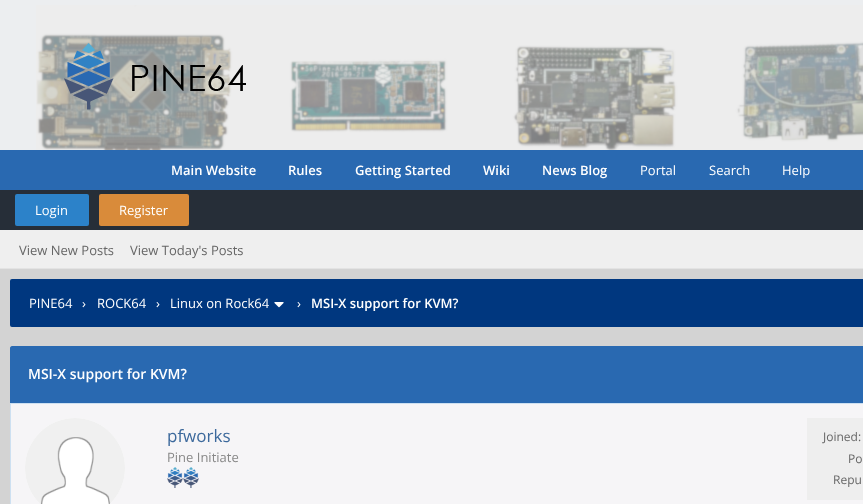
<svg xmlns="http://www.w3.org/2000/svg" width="863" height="504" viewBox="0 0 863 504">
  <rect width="100%" height="100%" fill="rgb(236,238,240)"/>
  <image x="36" y="5" width="827" height="145" href="pic1.png"/>
  <image x="64" y="43" width="182" height="67" href="pic2.png"/>
  <rect x="0" y="150" width="863" height="40" fill="rgb(41,105,177)"/>
  <g font-family="Open Sans" font-size="13" font-weight="600" fill="rgb(255,255,255)">
    <text x="171" y="175">Main Website</text>
    <text x="288" y="175">Rules</text>
    <text x="355" y="175">Getting Started</text>
    <text x="483" y="175">Wiki</text>
    <text x="542" y="175">News Blog</text>
  </g>
  <g font-family="Open Sans" font-size="13" fill="rgb(255,255,255)">
    <text x="640" y="175">Portal</text>
    <text x="709" y="175">Search</text>
    <text x="782" y="175">Help</text>
  </g>
  <rect x="0" y="190" width="863" height="40" fill="rgb(38,46,56)"/>
  <rect x="15" y="194" width="74" height="32" rx="2" fill="rgb(44,130,201)"/>
  <text x="35" y="215" font-family="Open Sans" font-size="13" fill="rgb(255,255,255)">Login</text>
  <rect x="99" y="194" width="90" height="32" rx="2" fill="rgb(217,139,58)"/>
  <text x="119" y="215" font-family="Open Sans" font-size="13" fill="rgb(255,255,255)">Register</text>
  <rect x="0" y="230" width="863" height="38" fill="rgb(239,239,239)"/>
  <rect x="0" y="268" width="863" height="1" fill="rgb(227,227,227)"/>
  <g font-family="Open Sans" font-size="13" fill="rgb(102,102,102)">
    <text x="19" y="255">View New Posts</text>
    <text x="130" y="255">View Today's Posts</text>
  </g>
  <rect x="0" y="269" width="863" height="235" fill="rgb(211,211,211)"/>
  <rect x="10" y="279" width="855" height="48" rx="2" fill="rgb(0,55,127)"/>
  <g font-family="Open Sans" font-size="13" fill="rgb(255,255,255)">
    <text x="29" y="308">PINE64</text>
    <text x="82" y="308">›</text>
    <text x="97" y="308">ROCK64</text>
    <text x="156" y="308">›</text>
    <text x="170" y="308">Linux on Rock64</text>
  </g>
  <image x="274" y="302" width="10" height="6" href="pic3.png"/>
  <text x="297" y="308" font-family="Open Sans" font-size="13" fill="rgb(255,255,255)">›</text>
  <text x="311" y="308" font-family="Open Sans" font-size="13" font-weight="600" fill="rgb(255,255,255)">MSI-X support for KVM?</text>
  <path d="M12 346H863C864 346 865 347 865 348V403H10V348C10 347 11 346 12 346Z" fill="rgb(41,105,177)"/>
  <text x="28" y="379" font-family="Open Sans" font-size="14" font-weight="600" fill="rgb(255,255,255)">MSI-X support for KVM?</text>
  <rect x="10.5" y="403.5" width="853" height="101" fill="none" stroke="rgb(205,224,241)"/>
  <rect x="11" y="404" width="852" height="100" fill="rgb(246,245,247)"/>
  <circle cx="75" cy="468" r="50" fill="rgb(255,255,255)"/>
  <image x="25" y="418" width="100" height="86" href="pic4.png"/>
  <text x="167" y="442" font-family="Open Sans" font-size="17" fill="rgb(60,105,156)">pfworks</text>
  <text x="167" y="462" font-family="Open Sans" font-size="13" fill="rgb(136,136,136)">Pine Initiate</text>
  <image x="167" y="467" width="16" height="21" href="pic5.png"/>
  <image x="183" y="467" width="16" height="21" href="pic5.png"/>
  <rect x="807" y="418" width="56" height="82" fill="rgb(238,238,238)"/>
  <g font-family="Open Sans" font-size="12" fill="rgb(102,102,102)">
    <text x="823" y="441">Joined:</text>
    <text x="848" y="463">Po</text>
    <text x="833" y="484">Repu</text>
  </g>
</svg>
